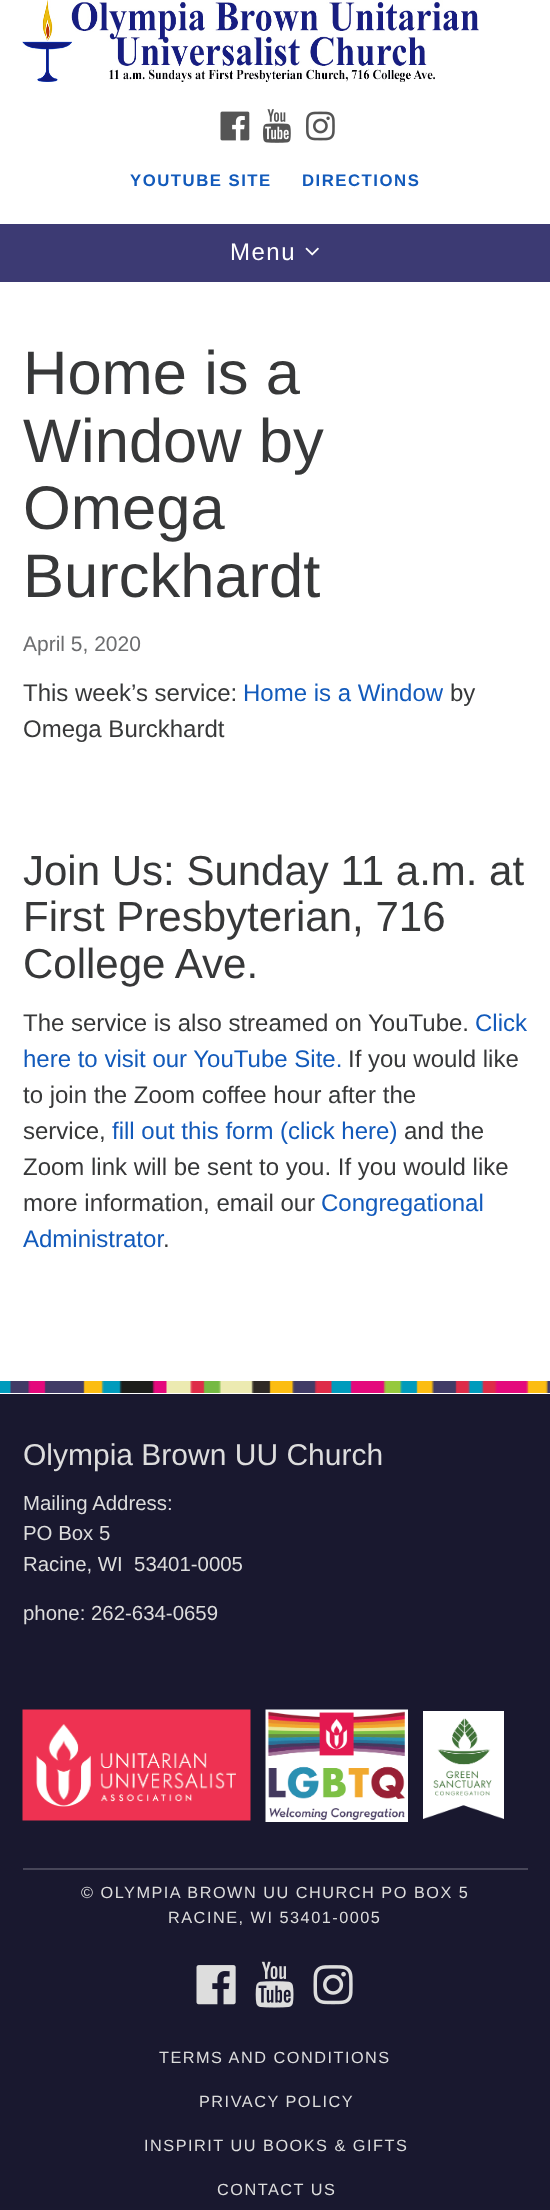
<svg xmlns="http://www.w3.org/2000/svg" width="550" height="2210" viewBox="0 0 550 2210">
  <rect width="100%" height="100%" fill="rgb(255,255,255)"/>
  <image x="22" y="0" width="457" height="82" href="pic1.png"/>
  <image x="220" y="111" width="30" height="30" href="pic2.png"/>
  <image x="263" y="109" width="28" height="34" href="pic3.png"/>
  <image x="306" y="111" width="29" height="30" href="pic4.png"/>
  <g font-family="Liberation Sans" font-size="16.75" font-weight="bold" letter-spacing="1.5" fill="rgb(18,90,187)">
    <text x="130" y="186">YOUTUBE SITE</text>
    <text x="302" y="186">DIRECTIONS</text>
  </g>
  <rect x="0" y="224" width="550" height="58" fill="rgb(60,58,115)"/>
  <text x="230" y="260" font-family="Liberation Sans" font-size="24" letter-spacing="1.5" fill="rgb(255,255,255)">Menu</text>
  <image x="305" y="247" width="14" height="9" href="pic5.png"/>
  <g font-family="Liberation Sans" font-size="61.5" fill="rgb(55,56,57)">
    <text>
      <tspan x="23" y="394">Home is a</tspan>
      <tspan x="23" y="462">Window by</tspan>
      <tspan x="23" y="529">Omega</tspan>
      <tspan x="23" y="597">Burckhardt</tspan>
    </text>
  </g>
  <text x="23" y="651" font-family="Liberation Sans" font-size="21" fill="rgb(108,109,111)">April 5, 2020</text>
  <text x="23" y="701" font-family="Liberation Sans" font-size="24" fill="rgb(55,56,57)">This week’s service:</text>
  <text x="243" y="701" font-family="Liberation Sans" font-size="24" fill="rgb(18,90,187)">Home is a Window</text>
  <g font-family="Liberation Sans" font-size="24" fill="rgb(55,56,57)">
    <text x="450" y="701">by</text>
    <text x="23" y="737">Omega Burckhardt</text>
  </g>
  <g font-family="Liberation Sans" font-size="42" fill="rgb(55,56,57)">
    <text>
      <tspan x="23" y="885">Join Us: Sunday 11 a.m. at</tspan>
      <tspan x="23" y="931">First Presbyterian, 716</tspan>
      <tspan x="23" y="978">College Ave.</tspan>
    </text>
  </g>
  <text x="23" y="1031" font-family="Liberation Sans" font-size="24" fill="rgb(55,56,57)">The service is also streamed on YouTube.</text>
  <g font-family="Liberation Sans" font-size="24" fill="rgb(18,90,187)">
    <text x="475" y="1031">Click</text>
    <text x="23" y="1067">here to visit our YouTube Site.</text>
  </g>
  <g font-family="Liberation Sans" font-size="24" fill="rgb(55,56,57)">
    <text x="348" y="1067">If you would like</text>
    <text>
      <tspan x="23" y="1103">to join the Zoom coffee hour after the</tspan>
      <tspan x="23" y="1139">service,</tspan>
    </text>
  </g>
  <text x="112" y="1139" font-family="Liberation Sans" font-size="24" fill="rgb(18,90,187)">fill out this form (click here)</text>
  <g font-family="Liberation Sans" font-size="24" fill="rgb(55,56,57)">
    <text x="404" y="1139">and the</text>
    <text>
      <tspan x="23" y="1175">Zoom link will be sent to you. If you would like</tspan>
      <tspan x="23" y="1211">more information, email our</tspan>
    </text>
  </g>
  <g font-family="Liberation Sans" font-size="24" fill="rgb(18,90,187)">
    <text x="321" y="1211">Congregational</text>
    <text x="23" y="1247">Administrator</text>
  </g>
  <text x="163" y="1247" font-family="Liberation Sans" font-size="24" fill="rgb(55,56,57)">.</text>
  <rect x="0" y="1394" width="550" height="816" fill="rgb(25,24,47)"/>
  <image x="0" y="1381" width="550" height="12" href="pic6.png"/>
  <text x="23" y="1465" font-family="Liberation Sans" font-size="30" fill="rgb(221,221,221)">Olympia Brown UU Church</text>
  <g font-family="Liberation Sans" font-size="20.4" fill="rgb(221,221,221)">
    <text xml:space="preserve"><tspan x="23" y="1510">Mailing Address:</tspan><tspan x="23" y="1540">PO Box 5</tspan><tspan x="23" y="1571">Racine, WI  53401-0005</tspan></text>
    <text x="23" y="1620">phone: 262-634-0659</text>
  </g>
  <image x="22" y="1709" width="229" height="112" href="pic7.png"/>
  <image x="265" y="1709" width="143" height="113" href="pic8.png"/>
  <image x="423" y="1711" width="81" height="108" href="pic9.png"/>
  <rect x="23" y="1868" width="505" height="2" fill="rgb(71,70,89)"/>
  <g font-family="Liberation Sans" font-size="16.3" letter-spacing="1.5" fill="rgb(221,221,221)">
    <text x="81" y="1898">© OLYMPIA BROWN UU CHURCH PO BOX 5</text>
    <text x="168" y="1923">RACINE, WI 53401-0005</text>
  </g>
  <image x="196" y="1965" width="40" height="40" href="pic10.png"/>
  <image x="255" y="1961" width="39" height="47" href="pic11.png"/>
  <image x="313" y="1965" width="40" height="40" href="pic12.png"/>
  <g font-family="Liberation Sans" font-size="16.3" letter-spacing="1.5" fill="rgb(221,221,221)">
    <text x="159" y="2063">TERMS AND CONDITIONS</text>
    <text x="199" y="2107">PRIVACY POLICY</text>
    <text x="144" y="2151">INSPIRIT UU BOOKS &amp; GIFTS</text>
    <text x="217" y="2195">CONTACT US</text>
  </g>
</svg>
